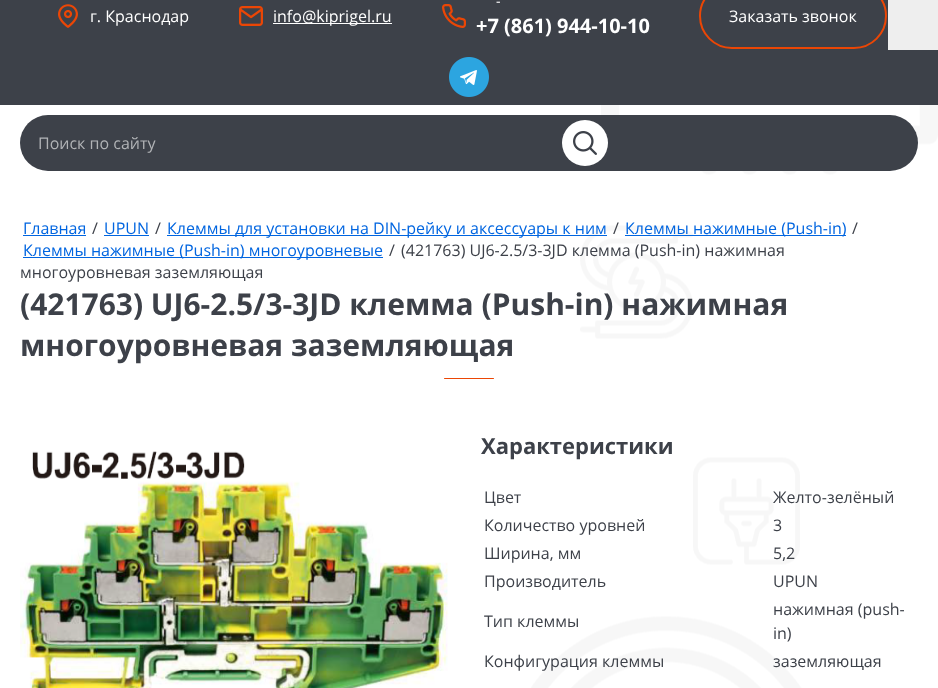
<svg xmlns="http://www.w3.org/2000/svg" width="938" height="688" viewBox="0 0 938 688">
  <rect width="100%" height="100%" fill="rgb(255,255,255)"/>
  <image x="531" y="105" width="407" height="583" href="pic1.png"/>
  <rect x="0" y="0" width="938" height="105" fill="rgb(61,65,73)"/>
  <image x="58" y="4" width="20" height="24" href="pic2.png"/>
  <text x="90" y="22" font-family="Open Sans" font-size="16" fill="rgb(255,255,255)">г. Краснодар</text>
  <image x="239" y="6" width="24" height="20" href="pic3.png"/>
  <rect x="273" y="23" width="119" height="1" fill="rgb(255,255,255)"/>
  <text x="273" y="22" font-family="Open Sans" font-size="16" fill="rgb(255,255,255)">info@kiprigel.ru</text>
  <image x="442" y="4" width="24" height="24" href="pic4.png"/>
  <text x="496" y="6" font-family="Open Sans" font-size="14" fill="rgb(255,255,255)">-</text>
  <text x="476" y="33" font-family="Open Sans" font-size="20" font-weight="bold" fill="rgb(255,255,255)">+7 (861) 944-10-10</text>
  <rect x="700" y="-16" width="186" height="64" rx="32" fill="none" stroke="rgb(235,70,5)" stroke-width="2"/>
  <text x="729" y="22" font-family="Open Sans" font-size="16" fill="rgb(255,255,255)">Заказать звонок</text>
  <image x="449" y="57" width="40" height="40" href="pic5.png"/>
  <rect x="20" y="115" width="898" height="56" rx="28" fill="rgb(61,65,73)"/>
  <text x="38" y="149" font-family="Open Sans" font-size="16" fill="rgb(177,179,182)">Поиск по сайту</text>
  <circle cx="585" cy="143" r="23" fill="rgb(255,255,255)"/>
  <image x="573" y="131" width="24" height="24" href="pic6.png"/>
  <rect x="888" y="0" width="50" height="50" fill="rgb(238,238,238)"/>
  <text x="23" y="234" font-family="Open Sans" font-size="16" fill="rgb(0,101,224)">Главная</text>
  <rect x="23" y="235" width="63" height="1" fill="rgb(0,101,224)"/>
  <text x="92" y="234" font-family="Open Sans" font-size="16" fill="rgb(61,65,73)">/</text>
  <text x="104" y="234" font-family="Open Sans" font-size="16" fill="rgb(0,101,224)">UPUN</text>
  <rect x="104" y="235" width="45" height="1" fill="rgb(0,101,224)"/>
  <text x="155" y="234" font-family="Open Sans" font-size="16" fill="rgb(61,65,73)">/</text>
  <rect x="167" y="235" width="440" height="1" fill="rgb(0,101,224)"/>
  <text x="167" y="234" font-family="Open Sans" font-size="16" fill="rgb(0,101,224)">Клеммы для установки на DIN-рейку и аксессуары к ним</text>
  <text x="613" y="234" font-family="Open Sans" font-size="16" fill="rgb(61,65,73)">/</text>
  <rect x="625" y="235" width="221" height="1" fill="rgb(0,101,224)"/>
  <text x="625" y="234" font-family="Open Sans" font-size="16" fill="rgb(0,101,224)">Клеммы нажимные (Push-in)</text>
  <text x="852" y="234" font-family="Open Sans" font-size="16" fill="rgb(61,65,73)">/</text>
  <rect x="23" y="257" width="360" height="1" fill="rgb(0,101,224)"/>
  <text x="23" y="256" font-family="Open Sans" font-size="16" fill="rgb(0,101,224)">Клеммы нажимные (Push-in) многоуровневые</text>
  <g font-family="Open Sans" font-size="16" fill="rgb(61,65,73)">
    <text x="389" y="256">/</text>
    <text x="401" y="256">(421763) UJ6-2.5/3-3JD клемма (Push-in) нажимная</text>
    <text x="20" y="278">многоуровневая заземляющая</text>
  </g>
  <g font-family="Open Sans" font-size="30" font-weight="bold" fill="rgb(61,65,73)">
    <text>
      <tspan x="20" y="315">(421763) UJ6-2.5/3-3JD клемма (Push-in) нажимная</tspan>
      <tspan x="20" y="356">многоуровневая заземляющая</tspan>
    </text>
  </g>
  <rect x="444" y="378" width="50" height="1" rx="0.5" fill="rgb(235,70,5)"/>
  <image x="20" y="451" width="428" height="237" href="pic7.png"/>
  <text x="481" y="454" font-family="Open Sans" font-size="22" font-weight="bold" fill="rgb(61,65,73)">Характеристики</text>
  <g font-family="Open Sans" font-size="16" fill="rgb(61,65,73)">
    <text x="484" y="503">Цвет</text>
    <text x="773" y="503">Желто-зелёный</text>
    <text x="484" y="531">Количество уровней</text>
    <text x="773" y="531">3</text>
    <text x="484" y="559">Ширина, мм</text>
    <text x="773" y="559">5,2</text>
    <text x="484" y="587">Производитель</text>
    <text x="773" y="587">UPUN</text>
    <text x="484" y="627">Тип клеммы</text>
    <text>
      <tspan x="773" y="615">нажимная (push-</tspan>
      <tspan x="773" y="639">in)</tspan>
    </text>
    <text x="484" y="667">Конфигурация клеммы</text>
    <text x="773" y="667">заземляющая</text>
  </g>
</svg>
